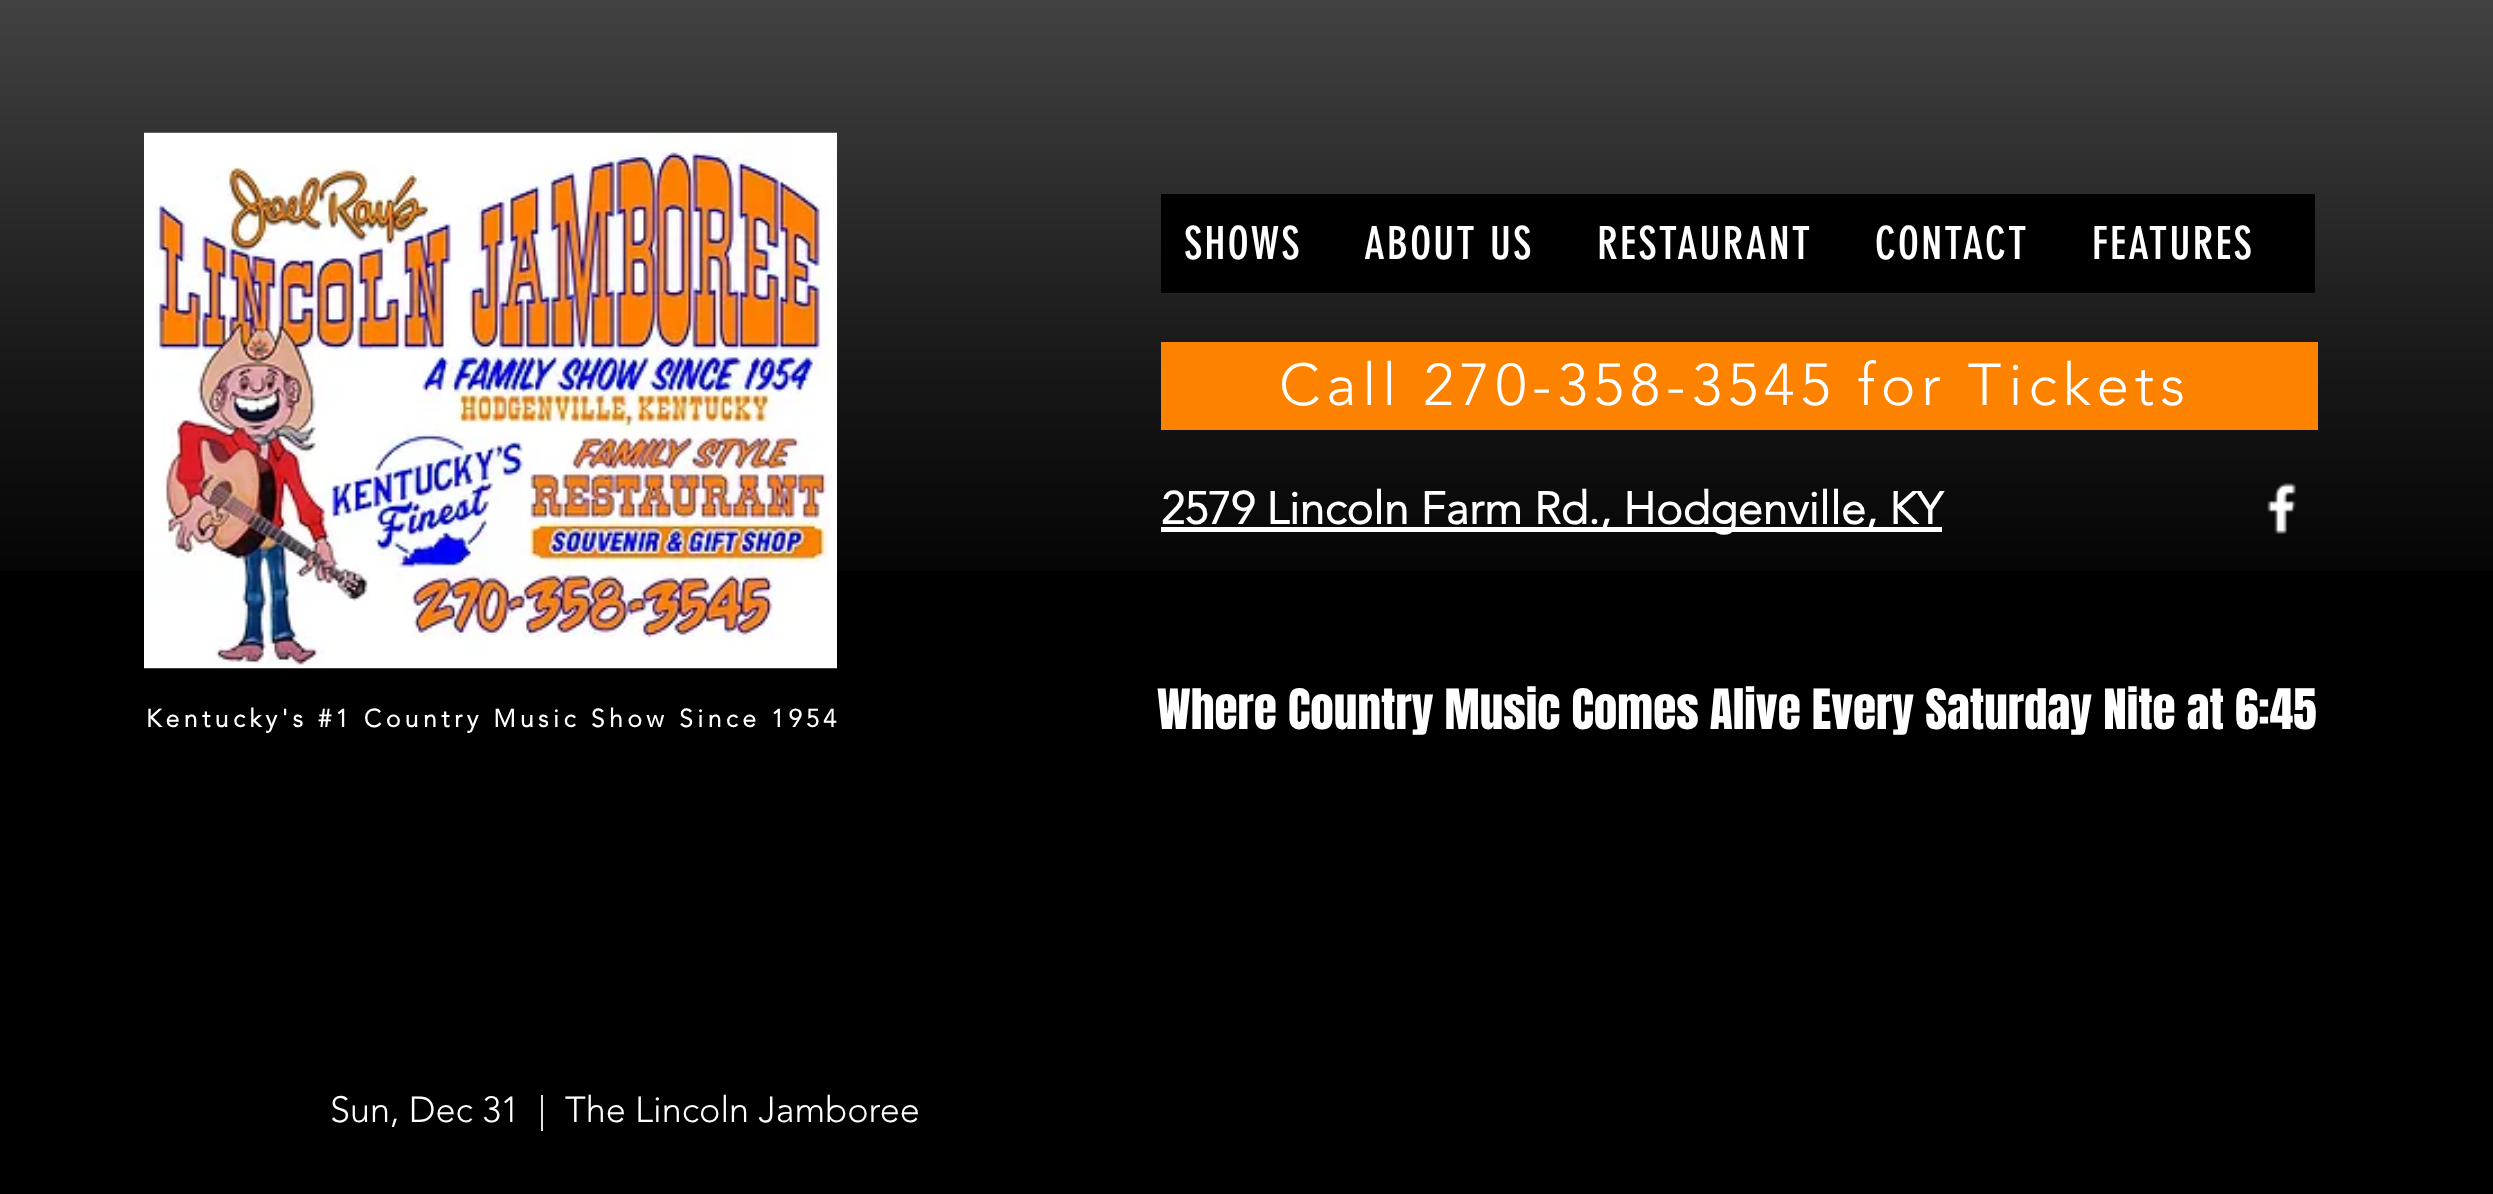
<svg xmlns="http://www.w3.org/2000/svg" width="2493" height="1194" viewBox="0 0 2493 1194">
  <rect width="100%" height="100%" fill="rgb(0,0,0)"/>
  <image x="0" y="0" width="2493" height="571" href="pic1.png"/>
  <rect x="1161" y="194" width="1154" height="99" fill="rgb(0,0,0)"/>
  <g font-family="'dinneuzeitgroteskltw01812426'" font-size="45" letter-spacing="2.25" fill="rgb(255,255,255)">
    <text x="1184" y="259">SHOWS</text>
    <text x="1364" y="259">ABOUT US</text>
    <text x="1597" y="259">RESTAURANT</text>
    <text x="1875" y="259">CONTACT</text>
    <text x="2092" y="259">FEATURES</text>
  </g>
  <rect x="1161" y="342" width="1157" height="88" fill="rgb(252,130,0)"/>
  <text x="1279" y="405" font-family="'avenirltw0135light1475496'" font-size="58.5" font-weight="300" letter-spacing="5.85" fill="rgb(255,255,255)">Call 270-358-3545 for Tickets</text>
  <rect x="1161" y="527" width="781" height="5" fill="rgb(255,255,255)"/>
  <text x="1161" y="524" font-family="'avenirltw0135light1475496'" font-size="45" font-weight="bold" fill="rgb(255,255,255)">2579 Lincoln Farm Rd., Hodgenville, KY</text>
  <image x="2267" y="483" width="29" height="51" href="pic2.png"/>
  <image x="144" y="132" width="693" height="537" href="pic3.png"/>
  <text x="146" y="727" font-family="'avenirltw0135light1475496'" font-size="24.75" font-weight="bold" letter-spacing="4.45" fill="rgb(255,255,255)">Kentucky's #1 Country Music Show Since 1954</text>
  <text x="1157" y="729" font-family="Anton" font-size="47.25" fill="rgb(255,255,255)">Where Country Music Comes Alive Every Saturday Nite at 6:45</text>
  <g font-family="'avenirltw0135light1475496'" font-size="36" font-weight="300" fill="rgb(255,255,255)">
    <text x="330" y="1122">Sun, Dec 31</text>
    <text x="538" y="1122">|</text>
    <text x="565" y="1122">The Lincoln Jamboree</text>
  </g>
</svg>
